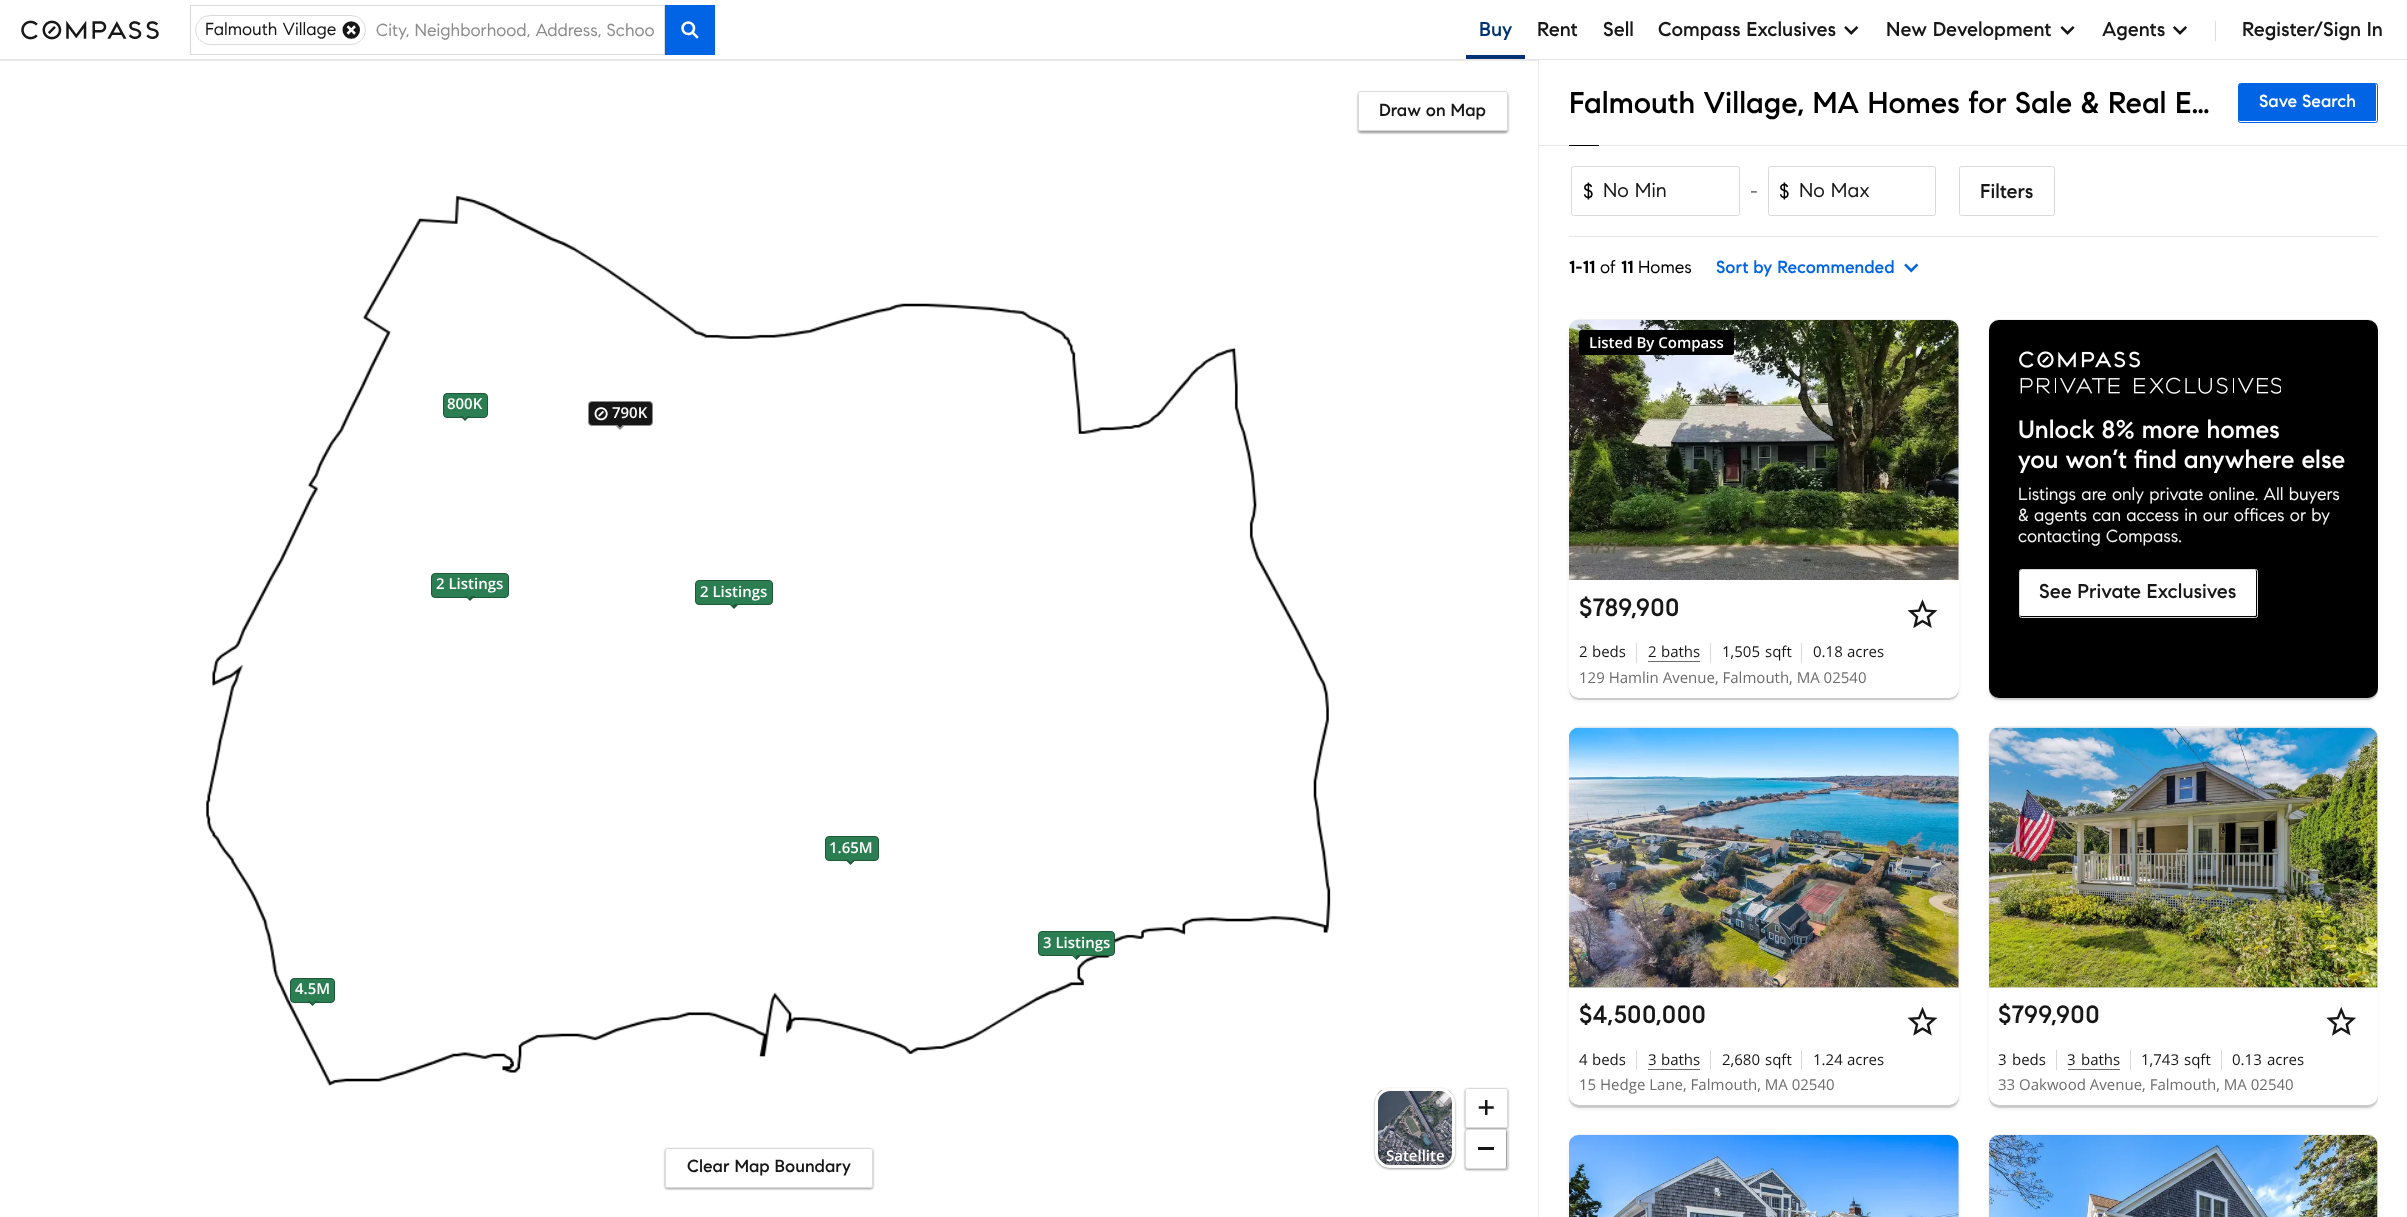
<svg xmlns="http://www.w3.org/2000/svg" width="2407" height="1217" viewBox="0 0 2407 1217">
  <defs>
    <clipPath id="clip1"><rect x="376" y="20" width="278" height="21"/></clipPath>
    <clipPath id="clip2"><path d="M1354 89H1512V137H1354ZM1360.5 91H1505.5C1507 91 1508 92 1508 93.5V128.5C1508 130 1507 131 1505.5 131H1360.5C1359 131 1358 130 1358 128.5V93.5C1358 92 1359 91 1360.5 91Z" clip-rule="evenodd"/></clipPath>
    <clipPath id="clip3"><path d="M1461 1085H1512V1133H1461ZM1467.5 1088H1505.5C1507 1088 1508 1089 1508 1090.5V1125.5C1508 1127 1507 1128 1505.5 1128H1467.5C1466 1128 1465 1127 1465 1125.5V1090.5C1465 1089 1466 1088 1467.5 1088Z" clip-rule="evenodd"/></clipPath>
    <clipPath id="clip4"><path d="M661 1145H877V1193H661ZM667.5 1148H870.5C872 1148 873 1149 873 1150.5V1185.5C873 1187 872 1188 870.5 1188H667.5C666 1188 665 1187 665 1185.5V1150.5C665 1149 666 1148 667.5 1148Z" clip-rule="evenodd"/></clipPath>
  </defs>
  <rect width="100%" height="100%" fill="rgb(255,255,255)"/>
  <rect x="0" y="59" width="2407" height="1" fill="rgb(230,230,230)"/>
  <image x="21" y="20" width="138" height="20" href="pic1.png"/>
  <rect x="190.5" y="5.5" width="474" height="49" fill="none" stroke="rgb(218,218,218)"/>
  <rect x="195.5" y="15.5" width="170" height="29" rx="14.5" fill="none" stroke="rgb(218,218,218)"/>
  <text x="205" y="35" font-family="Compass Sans" font-size="17.5" fill="rgb(23,23,23)">Falmouth Village</text>
  <image x="342" y="21" width="18" height="18" href="pic2.png"/>
  <g clip-path="url(#clip1)">
    <text x="376" y="36" font-family="Compass Sans" font-size="17.5" fill="rgb(141,141,141)">City, Neighborhood, Address, Schoo</text>
  </g>
  <rect x="665" y="5" width="50" height="50" fill="rgb(0,100,229)"/>
  <image x="681" y="21" width="18" height="18" href="pic3.png"/>
  <rect x="1466" y="55" width="59" height="4" fill="rgb(0,51,117)"/>
  <text x="1479" y="36" font-family="Compass Sans" font-size="20" font-weight="500" fill="rgb(0,51,117)">Buy</text>
  <g font-family="Compass Sans" font-size="20" font-weight="500" fill="rgb(23,23,23)">
    <text x="1537" y="36">Rent</text>
    <text x="1603" y="36">Sell</text>
    <text x="1658" y="36">Compass Exclusives</text>
  </g>
  <image x="1844" y="26" width="15" height="9" href="pic4.png"/>
  <text x="1886" y="36" font-family="Compass Sans" font-size="20" font-weight="500" fill="rgb(23,23,23)">New Development</text>
  <image x="2060" y="26" width="15" height="9" href="pic5.png"/>
  <text x="2102" y="36" font-family="Compass Sans" font-size="20" font-weight="500" fill="rgb(23,23,23)">Agents</text>
  <image x="2173" y="26" width="14" height="9" href="pic6.png"/>
  <rect x="2215" y="21" width="1" height="20" fill="rgb(220,220,220)"/>
  <text x="2242" y="36" font-family="Compass Sans" font-size="20" font-weight="500" fill="rgb(23,23,23)">Register/Sign In</text>
  <path d="M0 60H1539L1538 61H0Z" fill="rgb(235,235,235)"/>
  <path d="M1539 60V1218H1538V61Z" fill="rgba(0,0,0,0.08)"/>
  <g clip-path="url(#clip2)">
    <rect x="1358" y="93" width="150" height="40" rx="2.5" fill="rgba(0,0,0,0.4)" filter="blur(1px)"/>
  </g>
  <rect x="1358.5" y="91.5" width="149" height="39" rx="2" fill="none" stroke="rgb(218,218,218)"/>
  <text x="1379" y="116" font-family="Compass Sans" font-size="17.5" font-weight="500" fill="rgb(23,23,23)">Draw on Map</text>
  <rect x="1375" y="1089" width="80" height="80" rx="15" fill="rgba(0,0,0,0.4)" filter="blur(1px)"/>
  <image x="1377" y="1090" width="76" height="75" href="pic7.png"/>
  <rect x="1376.5" y="1089.5" width="77" height="77" rx="13.5" fill="none" stroke="rgb(255,255,255)" stroke-width="3"/>
  <text x="1386" y="1161" font-family="Open Sans" font-size="15" font-weight="600" fill="rgb(255,255,255)">Satellite</text>
  <g clip-path="url(#clip3)">
    <rect x="1465" y="1089" width="43" height="40" rx="2.5" fill="rgba(0,0,0,0.4)" filter="blur(1px)"/>
  </g>
  <rect x="1465.5" y="1088.5" width="42" height="39" rx="2" fill="none" stroke="rgb(218,218,218)"/>
  <image x="1478" y="1100" width="16" height="15" href="pic8.png"/>
  <rect x="1465" y="1130" width="43" height="40" rx="2.5" fill="rgba(0,0,0,0.4)" filter="blur(1px)"/>
  <rect x="1466" y="1130" width="40" height="38" rx="1" fill="rgb(255,255,255)"/>
  <rect x="1465.5" y="1129.5" width="42" height="39" rx="2" fill="none" stroke="rgb(218,218,218)"/>
  <rect x="1478" y="1147" width="16" height="3" fill="rgb(23,23,23)"/>
  <g clip-path="url(#clip4)">
    <rect x="665" y="1149" width="208" height="40" rx="2.5" fill="rgba(0,0,0,0.4)" filter="blur(1px)"/>
  </g>
  <rect x="665.5" y="1148.5" width="207" height="39" rx="2" fill="none" stroke="rgb(218,218,218)"/>
  <text x="687" y="1172" font-family="Compass Sans" font-size="17.5" font-weight="500" fill="rgb(23,23,23)">Clear Map Boundary</text>
  <image x="206" y="195" width="1125" height="892" href="pic9.png"/>
  <rect x="443.5" y="393.5" width="44" height="24" rx="3.5" fill="rgb(42,126,81)" stroke="rgb(30,88,57)"/>
  <text x="447" y="409" font-family="Open Sans" font-size="15" font-weight="600" fill="rgb(255,255,255)">800K</text>
  <path d="M460 416H470L465 421Z" fill="rgb(30,88,57)"/>
  <path d="M462.5 416H467.5L465 419Z" fill="rgb(42,126,81)"/>
  <rect x="588.5" y="401.5" width="64" height="24" rx="3.5" fill="rgb(23,23,23)" stroke="rgb(141,141,141)"/>
  <image x="594" y="407" width="14" height="14" href="pic10.png"/>
  <text x="612" y="418" font-family="Open Sans" font-size="15" font-weight="600" fill="rgb(255,255,255)">790K</text>
  <path d="M615 425H625L620 430Z" fill="rgb(141,141,141)"/>
  <path d="M617.5 425H622.5L620 427.5Z" fill="rgb(23,23,23)"/>
  <rect x="431.5" y="573.5" width="77" height="24" rx="3.5" fill="rgb(42,126,81)" stroke="rgb(30,88,57)"/>
  <text x="436" y="589" font-family="Open Sans" font-size="15" font-weight="600" fill="rgb(255,255,255)">2 Listings</text>
  <path d="M465 596H475L470 601Z" fill="rgb(30,88,57)"/>
  <path d="M466.5 596H471.5L469 599Z" fill="rgb(42,126,81)"/>
  <rect x="695.5" y="580.5" width="77" height="24" rx="3.5" fill="rgb(42,126,81)" stroke="rgb(30,88,57)"/>
  <text x="700" y="597" font-family="Open Sans" font-size="15" font-weight="600" fill="rgb(255,255,255)">2 Listings</text>
  <path d="M729 604H739L734 609Z" fill="rgb(30,88,57)"/>
  <path d="M730 604H735L732.5 606Z" fill="rgb(42,126,81)"/>
  <rect x="825.5" y="836.5" width="53" height="24" rx="3.5" fill="rgb(42,126,81)" stroke="rgb(30,88,57)"/>
  <text x="829" y="853" font-family="Open Sans" font-size="15" font-weight="600" fill="rgb(255,255,255)">1.65M</text>
  <path d="M845.5 860H855.5L850.5 865Z" fill="rgb(30,88,57)"/>
  <path d="M848 860H853L850.5 862.5Z" fill="rgb(42,126,81)"/>
  <rect x="1038.5" y="931.5" width="76" height="24" rx="3.5" fill="rgb(42,126,81)" stroke="rgb(30,88,57)"/>
  <text x="1043" y="948" font-family="Open Sans" font-size="15" font-weight="600" fill="rgb(255,255,255)">3 Listings</text>
  <path d="M1071.5 955H1081.5L1076.5 960Z" fill="rgb(30,88,57)"/>
  <path d="M1072.5 955H1077.5L1075 957.5Z" fill="rgb(42,126,81)"/>
  <rect x="290.5" y="978.5" width="44" height="24" rx="3.5" fill="rgb(42,126,81)" stroke="rgb(30,88,57)"/>
  <text x="295" y="994" font-family="Open Sans" font-size="15" font-weight="600" fill="rgb(255,255,255)">4.5M</text>
  <path d="M307.5 1001H317.5L312.5 1006Z" fill="rgb(30,88,57)"/>
  <path d="M310 1001H315L312.5 1004Z" fill="rgb(42,126,81)"/>
  <rect x="1539" y="145" width="868" height="1" fill="rgb(230,230,230)"/>
  <text x="1569" y="113" font-family="Compass Sans" font-size="30" font-weight="500" fill="rgb(0,0,0)">Falmouth Village, MA Homes for Sale &amp; Real E…</text>
  <rect x="2239" y="84" width="137" height="37" rx="1" fill="rgb(0,100,229)"/>
  <rect x="2238.5" y="83.5" width="139" height="39" rx="2" fill="none" stroke="rgb(0,100,229)"/>
  <text x="2259" y="107" font-family="Compass Sans" font-size="17.5" font-weight="500" fill="rgb(255,255,255)">Save Search</text>
  <rect x="1569" y="145" width="30" height="1" fill="rgb(0,0,0)"/>
  <rect x="1571.5" y="166.5" width="168" height="49" rx="2" fill="none" stroke="rgb(218,218,218)"/>
  <text x="1583" y="198" font-family="Compass Sans" font-size="20" fill="rgb(0,0,0)">$</text>
  <text x="1603" y="197" font-family="Compass Sans" font-size="20" fill="rgb(23,23,23)">No Min</text>
  <text x="1750" y="198" font-family="Compass Sans" font-size="20" fill="rgb(108,108,108)">-</text>
  <rect x="1768.5" y="166.5" width="167" height="49" rx="2" fill="none" stroke="rgb(218,218,218)"/>
  <text x="1779" y="198" font-family="Compass Sans" font-size="20" fill="rgb(0,0,0)">$</text>
  <text x="1799" y="197" font-family="Compass Sans" font-size="20" fill="rgb(23,23,23)">No Max</text>
  <rect x="1959.5" y="166.5" width="95" height="49" rx="2" fill="none" stroke="rgb(218,218,218)"/>
  <text x="1980" y="198" font-family="Compass Sans" font-size="20" font-weight="500" fill="rgb(23,23,23)">Filters</text>
  <rect x="1569" y="236" width="809" height="1" fill="rgb(230,230,230)"/>
  <text x="1569" y="273" font-family="Compass Sans" font-size="17.5" font-weight="bold" fill="rgb(0,0,0)">1-11</text>
  <text x="1600" y="273" font-family="Compass Sans" font-size="17.5" fill="rgb(0,0,0)">of</text>
  <text x="1621" y="273" font-family="Compass Sans" font-size="17.5" font-weight="bold" fill="rgb(0,0,0)">11</text>
  <text x="1638" y="273" font-family="Compass Sans" font-size="17.5" fill="rgb(0,0,0)">Homes</text>
  <text x="1716" y="273" font-family="Compass Sans" font-size="17.5" font-weight="500" fill="rgb(0,100,229)">Sort by Recommended</text>
  <image x="1904" y="263" width="15" height="10" href="pic11.png"/>
  <rect x="1569" y="319" width="390" height="377" rx="10" fill="rgba(0,0,0,0.06)" filter="blur(0.5px)"/>
  <rect x="1569" y="323" width="390" height="377" rx="10" fill="rgba(0,0,0,0.14)" filter="blur(0.5px)"/>
  <rect x="1570" y="325" width="388" height="375" rx="9" fill="rgba(0,0,0,0.1)" filter="blur(2.5px)"/>
  <rect x="1569" y="320" width="390" height="378" rx="10" fill="rgb(255,255,255)"/>
  <path d="M1579 320H1949C1954.5 320 1959 324.5 1959 330V580H1569V330C1569 324.5 1573.5 320 1579 320Z" fill="rgb(218,218,218)"/>
  <image x="1569" y="320" width="390" height="260" href="pic12.png"/>
  <rect x="1579" y="330" width="155" height="25" rx="2.5" fill="rgb(0,0,0)"/>
  <text x="1589" y="348" font-family="Open Sans" font-size="15" font-weight="600" fill="rgb(255,255,255)">Listed By Compass</text>
  <text x="1589" y="553" font-family="Compass Sans" font-size="15" font-weight="bold" fill="rgb(96,97,74)">1/37</text>
  <text x="1579" y="616" font-family="Compass Sans" font-size="25" font-weight="500" fill="rgb(23,23,23)">$789,900</text>
  <image x="1907" y="599" width="31" height="30" href="pic13.png"/>
  <g font-family="Open Sans" font-size="15" fill="rgb(23,23,23)">
    <text x="1579" y="657">2</text>
    <text x="1592" y="657">beds</text>
  </g>
  <rect x="1636" y="643" width="1" height="20" fill="rgb(218,218,218)"/>
  <rect x="1648" y="661" width="52" height="1" fill="rgb(108,108,108)"/>
  <g font-family="Open Sans" font-size="15" fill="rgb(23,23,23)">
    <text x="1648" y="657">2</text>
    <text x="1661" y="657">baths</text>
  </g>
  <rect x="1710" y="643" width="1" height="20" fill="rgb(218,218,218)"/>
  <g font-family="Open Sans" font-size="15" fill="rgb(23,23,23)">
    <text x="1722" y="657">1,505</text>
    <text x="1765" y="657">sqft</text>
  </g>
  <rect x="1801" y="643" width="1" height="20" fill="rgb(218,218,218)"/>
  <g font-family="Open Sans" font-size="15" fill="rgb(23,23,23)">
    <text x="1813" y="657">0.18</text>
    <text x="1847" y="657">acres</text>
  </g>
  <text x="1579" y="683" font-family="Open Sans" font-size="15" fill="rgb(108,108,108)">129 Hamlin Avenue, Falmouth, MA 02540</text>
  <rect x="1989" y="319" width="389" height="377" rx="10" fill="rgba(0,0,0,0.06)" filter="blur(0.5px)"/>
  <rect x="1989" y="323" width="389" height="377" rx="10" fill="rgba(0,0,0,0.14)" filter="blur(0.5px)"/>
  <rect x="1990" y="325" width="386" height="375" rx="9" fill="rgba(0,0,0,0.1)" filter="blur(2.5px)"/>
  <rect x="1989" y="320" width="389" height="378" rx="10" fill="rgb(0,0,0)"/>
  <image x="2019" y="351" width="262" height="43" href="pic14.png"/>
  <g font-family="Compass Sans" font-size="25" font-weight="500" fill="rgb(255,255,255)">
    <text>
      <tspan x="2018" y="438">Unlock 8% more homes</tspan>
      <tspan x="2018" y="468">you won’t find anywhere else</tspan>
    </text>
  </g>
  <g font-family="Compass Sans" font-size="17.5" fill="rgb(244,244,244)">
    <text>
      <tspan x="2018" y="500">Listings are only private online. All buyers</tspan>
      <tspan x="2018" y="521">&amp; agents can access in our offices or by</tspan>
      <tspan x="2018" y="542">contacting Compass.</tspan>
    </text>
  </g>
  <rect x="2020" y="570" width="236" height="46" rx="1" fill="rgb(255,255,255)"/>
  <rect x="2019.5" y="569.5" width="238" height="48" rx="2" fill="none" stroke="rgb(218,218,218)"/>
  <text x="2039" y="598" font-family="Compass Sans" font-size="20" font-weight="500" fill="rgb(23,23,23)">See Private Exclusives</text>
  <rect x="1569" y="726" width="390" height="378" rx="10" fill="rgba(0,0,0,0.06)" filter="blur(0.5px)"/>
  <rect x="1569" y="730" width="390" height="378" rx="10" fill="rgba(0,0,0,0.14)" filter="blur(0.5px)"/>
  <rect x="1570" y="733" width="388" height="375" rx="9" fill="rgba(0,0,0,0.1)" filter="blur(2.5px)"/>
  <rect x="1569" y="728" width="390" height="377" rx="10" fill="rgb(255,255,255)"/>
  <path d="M1579 728H1949C1954.5 728 1959 732.5 1959 738V988H1569V738C1569 732.5 1573.5 728 1579 728Z" fill="rgb(218,218,218)"/>
  <image x="1569" y="727" width="390" height="261" href="pic15.png"/>
  <text x="1579" y="1023" font-family="Compass Sans" font-size="25" font-weight="500" fill="rgb(23,23,23)">$4,500,000</text>
  <image x="1907" y="1007" width="31" height="29" href="pic16.png"/>
  <g font-family="Open Sans" font-size="15" fill="rgb(23,23,23)">
    <text x="1579" y="1065">4</text>
    <text x="1592" y="1065">beds</text>
  </g>
  <rect x="1636" y="1050" width="1" height="20" fill="rgb(218,218,218)"/>
  <rect x="1648" y="1069" width="52" height="1" fill="rgb(108,108,108)"/>
  <g font-family="Open Sans" font-size="15" fill="rgb(23,23,23)">
    <text x="1648" y="1065">3</text>
    <text x="1661" y="1065">baths</text>
  </g>
  <rect x="1710" y="1050" width="1" height="20" fill="rgb(218,218,218)"/>
  <g font-family="Open Sans" font-size="15" fill="rgb(23,23,23)">
    <text x="1722" y="1065">2,680</text>
    <text x="1765" y="1065">sqft</text>
  </g>
  <rect x="1801" y="1050" width="1" height="20" fill="rgb(218,218,218)"/>
  <g font-family="Open Sans" font-size="15" fill="rgb(23,23,23)">
    <text x="1813" y="1065">1.24</text>
    <text x="1847" y="1065">acres</text>
  </g>
  <text x="1579" y="1090" font-family="Open Sans" font-size="15" fill="rgb(108,108,108)">15 Hedge Lane, Falmouth, MA 02540</text>
  <rect x="1989" y="726" width="389" height="378" rx="10" fill="rgba(0,0,0,0.06)" filter="blur(0.5px)"/>
  <rect x="1989" y="730" width="389" height="378" rx="10" fill="rgba(0,0,0,0.14)" filter="blur(0.5px)"/>
  <rect x="1990" y="733" width="386" height="375" rx="9" fill="rgba(0,0,0,0.1)" filter="blur(2.5px)"/>
  <rect x="1989" y="728" width="389" height="377" rx="10" fill="rgb(255,255,255)"/>
  <path d="M1999 728H2368C2373.5 728 2378 732.5 2378 738V988H1989V738C1989 732.5 1993.5 728 1999 728Z" fill="rgb(218,218,218)"/>
  <image x="1989" y="727" width="389" height="261" href="pic17.png"/>
  <text x="1998" y="1023" font-family="Compass Sans" font-size="25" font-weight="500" fill="rgb(23,23,23)">$799,900</text>
  <image x="2326" y="1007" width="30" height="29" href="pic18.png"/>
  <g font-family="Open Sans" font-size="15" fill="rgb(23,23,23)">
    <text x="1998" y="1065">3</text>
    <text x="2012" y="1065">beds</text>
  </g>
  <rect x="2056" y="1050" width="1" height="20" fill="rgb(218,218,218)"/>
  <rect x="2068" y="1069" width="52" height="1" fill="rgb(108,108,108)"/>
  <g font-family="Open Sans" font-size="15" fill="rgb(23,23,23)">
    <text x="2067" y="1065">3</text>
    <text x="2081" y="1065">baths</text>
  </g>
  <rect x="2130" y="1050" width="1" height="20" fill="rgb(218,218,218)"/>
  <g font-family="Open Sans" font-size="15" fill="rgb(23,23,23)">
    <text x="2141" y="1065">1,743</text>
    <text x="2184" y="1065">sqft</text>
  </g>
  <rect x="2221" y="1050" width="1" height="20" fill="rgb(218,218,218)"/>
  <g font-family="Open Sans" font-size="15" fill="rgb(23,23,23)">
    <text x="2232" y="1065">0.13</text>
    <text x="2267" y="1065">acres</text>
  </g>
  <text x="1998" y="1090" font-family="Open Sans" font-size="15" fill="rgb(108,108,108)">33 Oakwood Avenue, Falmouth, MA 02540</text>
  <rect x="1569" y="1134" width="390" height="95" rx="10" fill="rgba(0,0,0,0.06)" filter="blur(0.5px)"/>
  <rect x="1570" y="1140" width="388" height="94" rx="9" fill="rgba(0,0,0,0.1)" filter="blur(2.5px)"/>
  <path d="M1579 1135H1949C1954.5 1135 1959 1139.5 1959 1145V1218H1569V1145C1569 1139.5 1573.5 1135 1579 1135Z" fill="rgb(218,218,218)"/>
  <image x="1569" y="1135" width="390" height="82" href="pic19.png"/>
  <rect x="1989" y="1134" width="389" height="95" rx="10" fill="rgba(0,0,0,0.06)" filter="blur(0.5px)"/>
  <rect x="1989" y="1138" width="389" height="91" rx="10" fill="rgba(0,0,0,0.14)" filter="blur(0.5px)"/>
  <rect x="1990" y="1140" width="386" height="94" rx="9" fill="rgba(0,0,0,0.1)" filter="blur(2.5px)"/>
  <path d="M1999 1135H2368C2373.5 1135 2378 1139.5 2378 1145V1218H1989V1145C1989 1139.5 1993.5 1135 1999 1135Z" fill="rgb(218,218,218)"/>
  <image x="1989" y="1135" width="389" height="82" href="pic20.png"/>
</svg>
